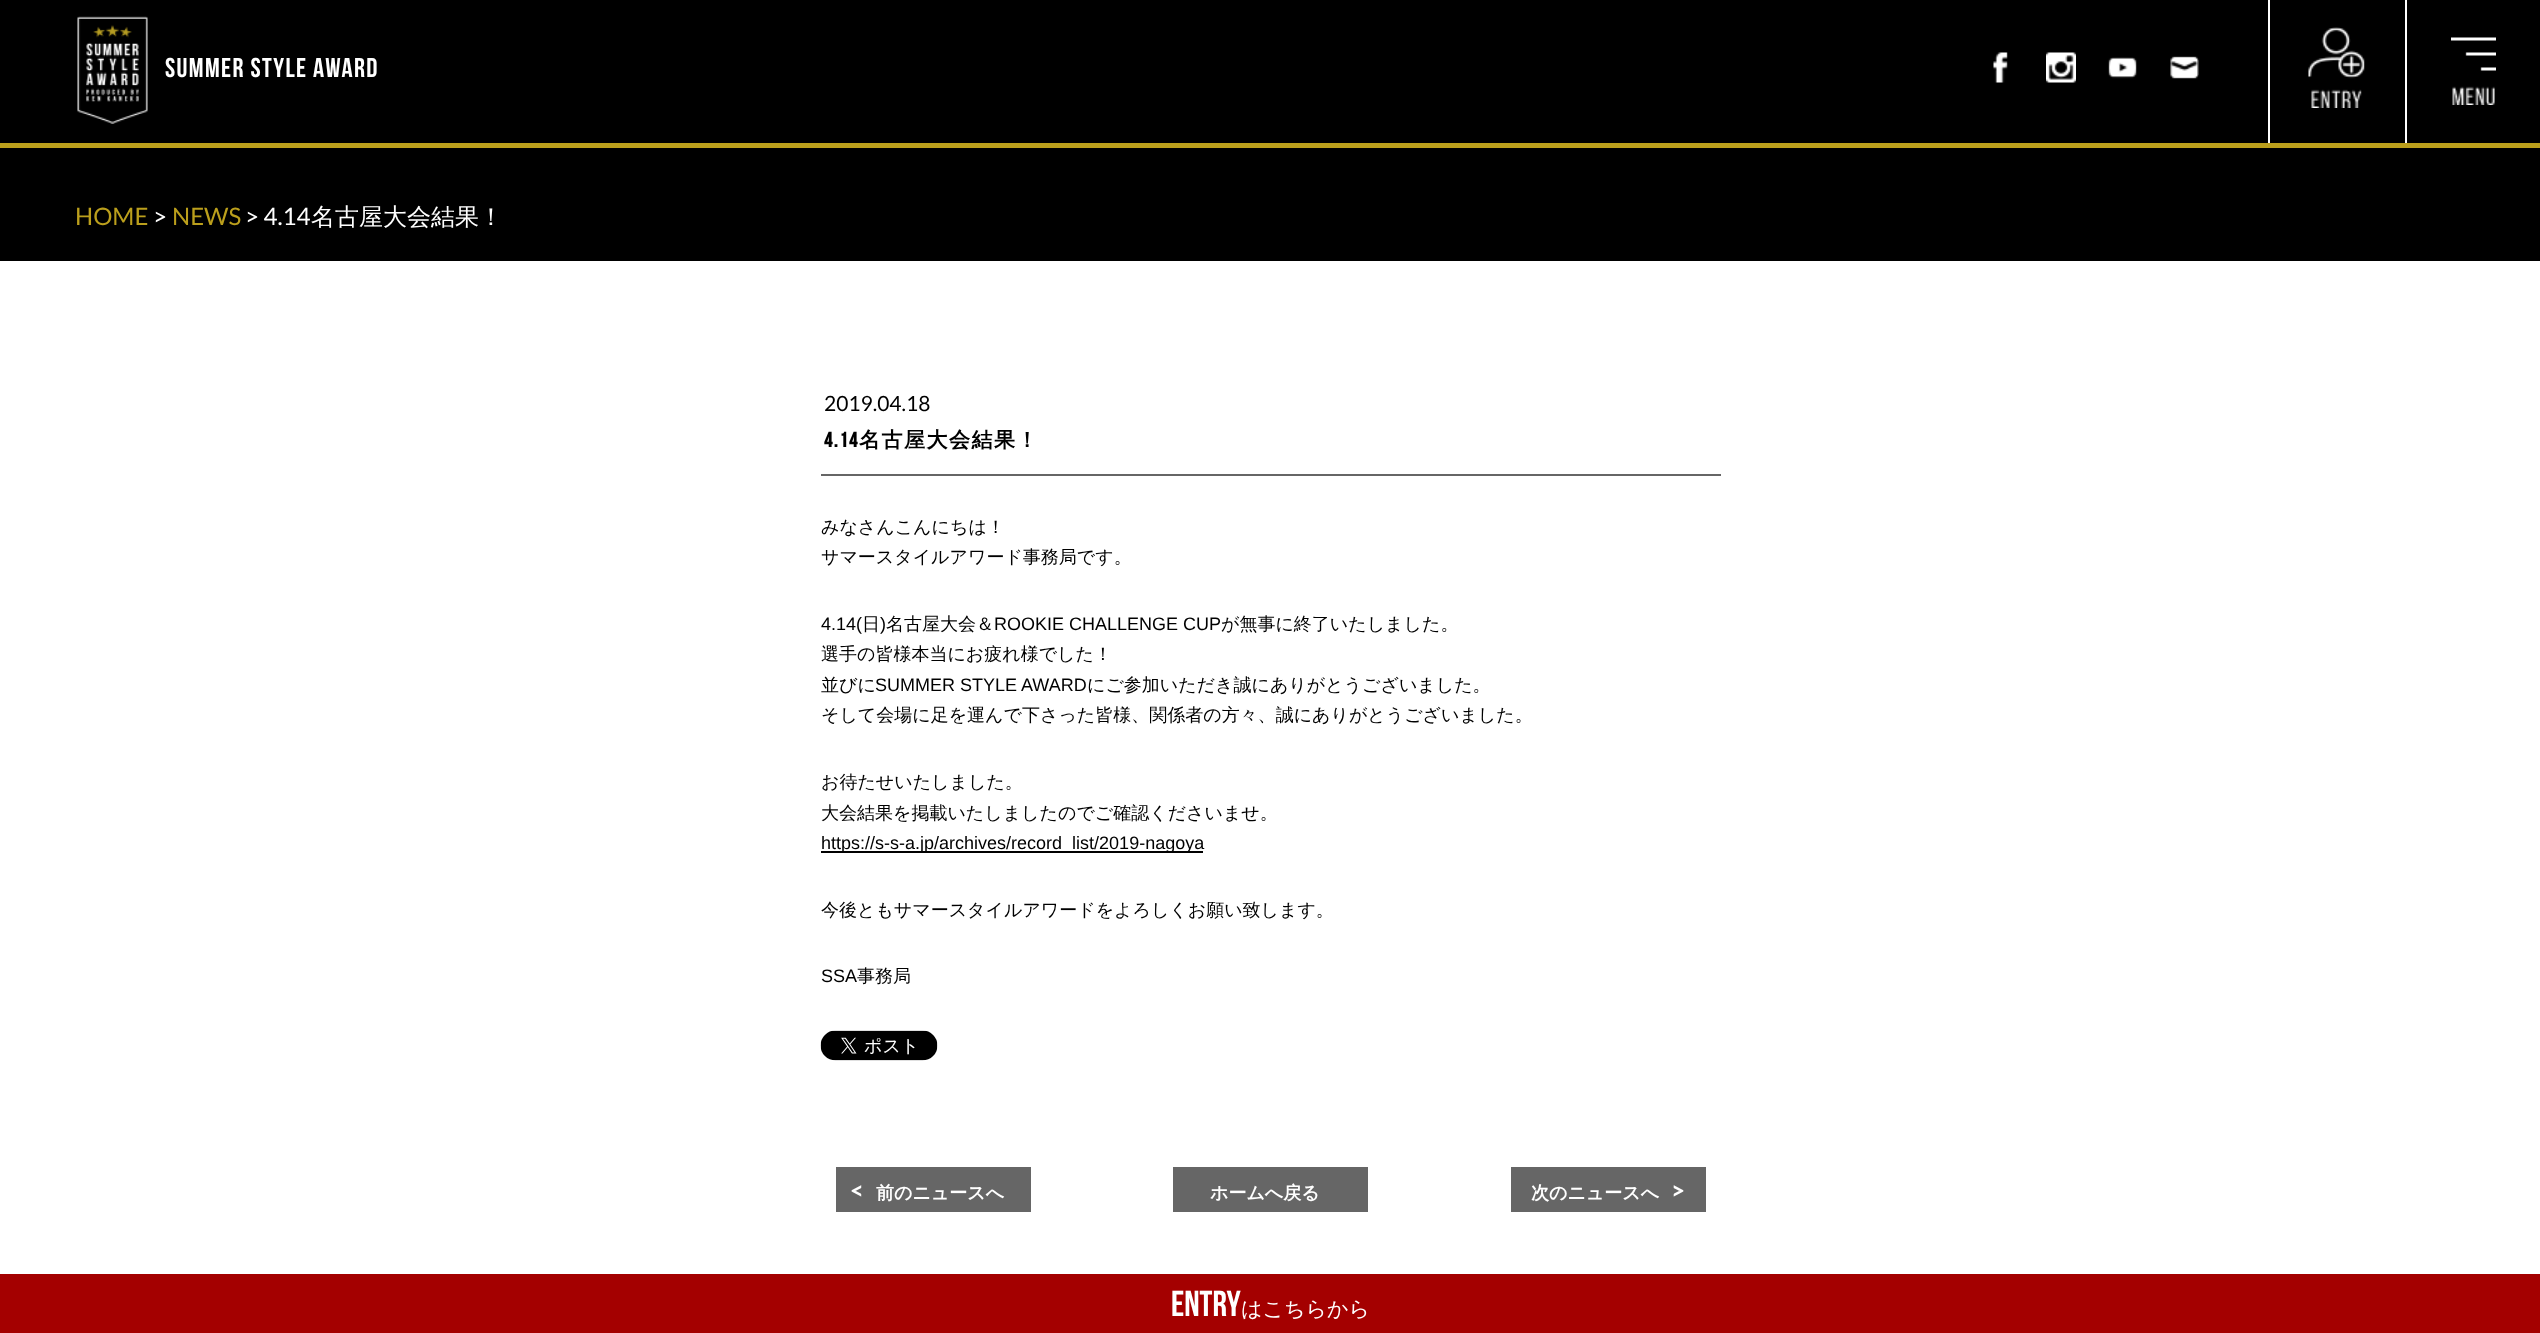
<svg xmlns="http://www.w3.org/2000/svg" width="2540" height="1333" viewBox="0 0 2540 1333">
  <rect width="100%" height="100%" fill="rgb(255,255,255)"/>
  <rect x="0" y="0" width="2540" height="143" fill="rgb(0,0,0)"/>
  <rect x="0" y="143" width="2540" height="5" fill="rgb(187,159,28)"/>
  <image x="77" y="16" width="71" height="108" href="pic1.png"/>
  <text x="165" y="77" font-family="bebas" font-size="27.25" letter-spacing="1.4" fill="rgb(255,255,255)">SUMMER STYLE AWARD</text>
  <image x="1993" y="52" width="15" height="31" href="pic2.png"/>
  <image x="2046" y="52" width="30" height="31" href="pic3.png"/>
  <image x="2108" y="57" width="29" height="22" href="pic4.png"/>
  <image x="2170" y="56" width="29" height="23" href="pic5.png"/>
  <rect x="2268" y="0" width="2" height="143" fill="rgb(255,255,255)"/>
  <image x="2308" y="27" width="57" height="81" href="pic6.png"/>
  <rect x="2405" y="0" width="2" height="143" fill="rgb(255,255,255)"/>
  <image x="2451" y="37" width="45" height="68" href="pic7.png"/>
  <rect x="0" y="148" width="2540" height="113" fill="rgb(0,0,0)"/>
  <text x="75" y="225" font-family="Lato" font-size="24" fill="rgb(187,159,28)">HOME</text>
  <text x="153" y="225" font-family="Lato" font-size="24" fill="rgb(255,255,255)">&gt;</text>
  <text x="172" y="225" font-family="Lato" font-size="24" fill="rgb(187,159,28)">NEWS</text>
  <text x="245" y="225" font-family="Lato" font-size="24" fill="rgb(255,255,255)">&gt; 4.14</text>
  <text x="311" y="225" font-family="WenQuanYi Zen Hei" font-size="24" font-weight="500" fill="rgb(255,255,255)">名古屋大会結果！</text>
  <rect x="821" y="474" width="900" height="2" fill="rgb(102,102,102)"/>
  <text x="824" y="411" font-family="Lato" font-size="21" fill="rgb(0,0,0)">2019.04.18</text>
  <text x="824" y="447" font-family="bebas" font-size="21" font-weight="bold" letter-spacing="1.5" fill="rgb(0,0,0)">4.14</text>
  <text x="859" y="447" font-family="WenQuanYi Zen Hei" font-size="21" font-weight="bold" letter-spacing="1.5" fill="rgb(0,0,0)">名古屋大会結果！</text>
  <g font-family="WenQuanYi Zen Hei" font-size="18" font-weight="500" fill="rgb(0,0,0)">
    <text>
      <tspan x="821" y="533">みなさんこんにちは！</tspan>
      <tspan x="821" y="563">サマースタイルアワード事務局です。</tspan>
    </text>
  </g>
  <text x="821" y="630" font-family="Liberation Sans" font-size="18" fill="rgb(0,0,0)">4.14(</text>
  <text x="862" y="630" font-family="WenQuanYi Zen Hei" font-size="18" font-weight="500" fill="rgb(0,0,0)">日</text>
  <text x="880" y="630" font-family="Liberation Sans" font-size="18" fill="rgb(0,0,0)">)</text>
  <text x="886" y="630" font-family="WenQuanYi Zen Hei" font-size="18" font-weight="500" fill="rgb(0,0,0)">名古屋大会＆</text>
  <text x="994" y="630" font-family="Liberation Sans" font-size="18" fill="rgb(0,0,0)">ROOKIE CHALLENGE CUP</text>
  <g font-family="WenQuanYi Zen Hei" font-size="18" font-weight="500" fill="rgb(0,0,0)">
    <text x="1221" y="630">が無事に終了いたしました。</text>
    <text>
      <tspan x="821" y="660">選手の皆様本当にお疲れ様でした！</tspan>
      <tspan x="821" y="691">並びに</tspan>
    </text>
  </g>
  <text x="875" y="691" font-family="Liberation Sans" font-size="18" fill="rgb(0,0,0)">SUMMER STYLE AWARD</text>
  <g font-family="WenQuanYi Zen Hei" font-size="18" font-weight="500" fill="rgb(0,0,0)">
    <text x="1087" y="691">にご参加いただき誠にありがとうございました。</text>
    <text x="821" y="721">そして会場に足を運んで下さった皆様、関係者の方々、誠にありがとうございました。</text>
    <text>
      <tspan x="821" y="788">お待たせいたしました。</tspan>
      <tspan x="821" y="819">大会結果を掲載いたしましたのでご確認くださいませ。</tspan>
    </text>
  </g>
  <rect x="821" y="851" width="382" height="2" fill="rgb(0,0,0)"/>
  <text x="821" y="849" font-family="Liberation Sans" font-size="18" fill="rgb(0,0,0)">https://s-s-a.jp/archives/record_list/2019-nagoya</text>
  <text x="821" y="916" font-family="WenQuanYi Zen Hei" font-size="18" font-weight="500" fill="rgb(0,0,0)">今後ともサマースタイルアワードをよろしくお願い致します。</text>
  <text x="821" y="982" font-family="Liberation Sans" font-size="18" fill="rgb(0,0,0)">SSA</text>
  <text x="857" y="982" font-family="WenQuanYi Zen Hei" font-size="18" font-weight="500" fill="rgb(0,0,0)">事務局</text>
  <image x="820" y="1030" width="118" height="31" href="pic8.png"/>
  <rect x="836" y="1167" width="195" height="45" fill="rgb(102,102,102)"/>
  <text x="850" y="1199" font-family="Lato" font-size="24" font-weight="bold" fill="rgb(255,255,255)">&lt;</text>
  <text x="876" y="1199" font-family="WenQuanYi Zen Hei" font-size="18" font-weight="bold" fill="rgb(255,255,255)">前のニュースへ</text>
  <rect x="1173" y="1167" width="195" height="45" fill="rgb(102,102,102)"/>
  <text x="1210" y="1199" font-family="WenQuanYi Zen Hei" font-size="18" font-weight="bold" fill="rgb(255,255,255)">ホームへ戻る</text>
  <rect x="1511" y="1167" width="195" height="45" fill="rgb(102,102,102)"/>
  <text x="1531" y="1199" font-family="WenQuanYi Zen Hei" font-size="18" font-weight="bold" fill="rgb(255,255,255)">次のニュースへ</text>
  <text x="1671" y="1199" font-family="Lato" font-size="24" font-weight="bold" fill="rgb(255,255,255)">&gt;</text>
  <rect x="0" y="1274" width="2540" height="59" fill="rgb(164,0,0)"/>
  <text x="1171" y="1316" font-family="bebas" font-size="36" fill="rgb(255,255,255)">ENTRY</text>
  <text x="1241" y="1316" font-family="WenQuanYi Zen Hei" font-size="21" font-weight="500" fill="rgb(255,255,255)">はこちらから</text>
</svg>
